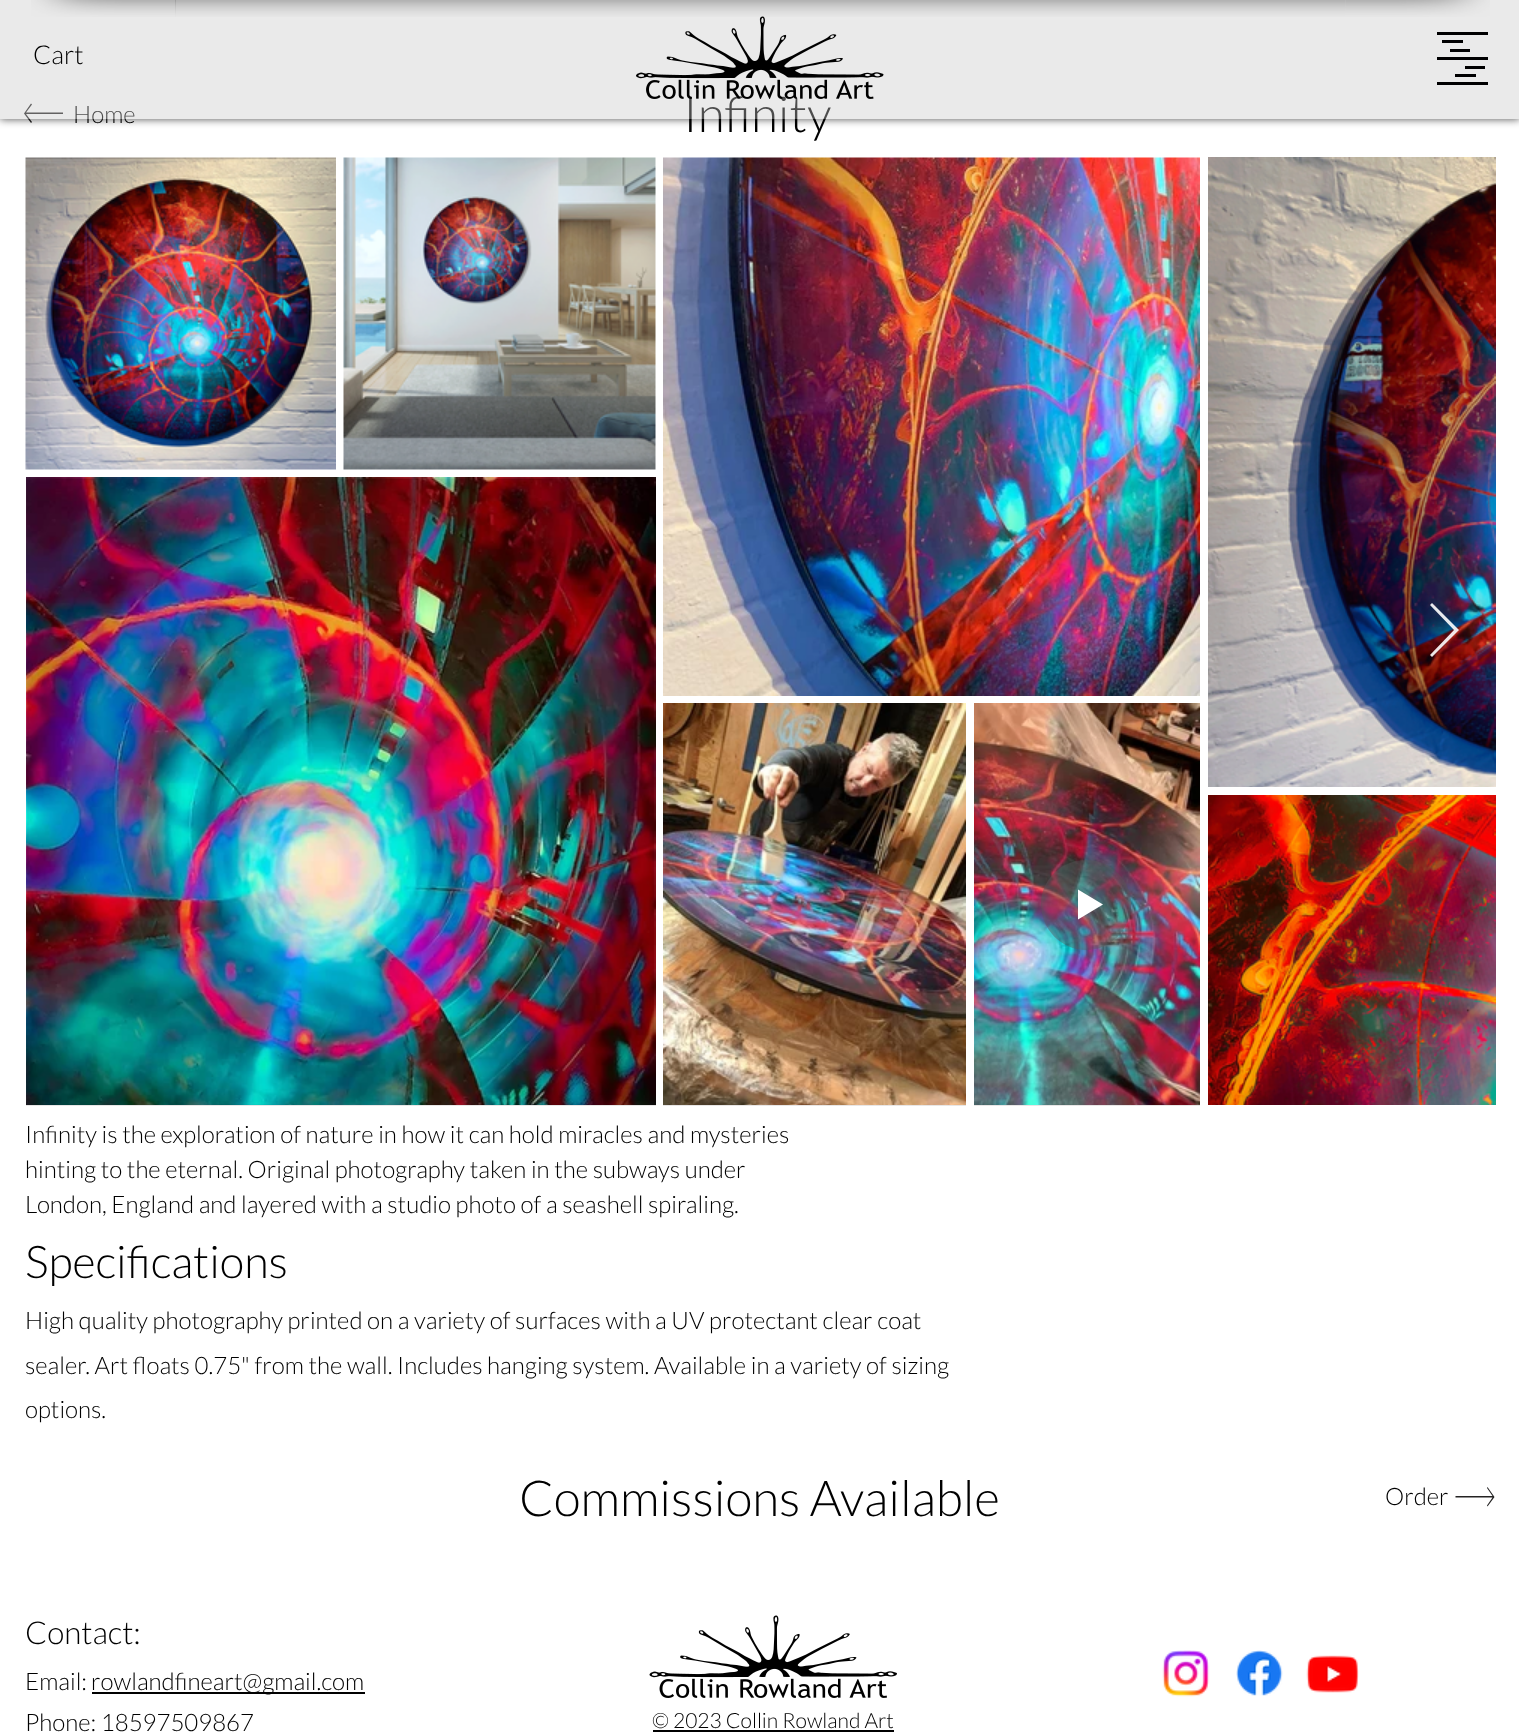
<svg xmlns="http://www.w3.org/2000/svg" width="1519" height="1733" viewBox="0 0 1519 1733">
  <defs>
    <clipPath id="clip1"><path d="M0 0H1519V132H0ZM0 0H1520V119H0Z" clip-rule="evenodd"/></clipPath>
  </defs>
  <rect width="100%" height="100%" fill="rgb(255,255,255)"/>
  <image x="31" y="0" width="145" height="17" href="pic1.png"/>
  <image x="175" y="0" width="1171" height="17" href="pic2.png"/>
  <image x="1345" y="0" width="145" height="17" href="pic3.png"/>
  <path d="M31 103.5L24 113.5L31 123L32 122L26 114H63V112.5H26L32 104.5Z" fill="rgb(36,35,35)"/>
  <g clip-path="url(#clip1)">
    <rect x="0" y="0" width="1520" height="119" fill="rgba(0,0,0,0.7)" filter="blur(4px)"/>
  </g>
  <text x="73" y="123" font-family="Lato" font-size="24" font-weight="300" fill="rgb(0,0,0)">Home</text>
  <text x="683" y="132" font-family="Lato" font-size="49.5" font-weight="300" fill="rgb(0,0,0)">Infinity</text>
  <rect x="0" y="0" width="1519" height="119" fill="rgba(199,199,199,0.38)"/>
  <text x="33" y="64" font-family="Lato" font-size="26" font-weight="300" fill="rgb(0,0,0)">Cart</text>
  <image x="636" y="16" width="248" height="83" href="pic4.png"/>
  <rect x="1437" y="82" width="51" height="3" fill="rgb(0,0,1)"/>
  <rect x="1437" y="57" width="51" height="3" fill="rgb(0,0,1)"/>
  <rect x="1437" y="32" width="51" height="3" fill="rgb(0,0,1)"/>
  <rect x="1442" y="40" width="21" height="3" fill="rgb(0,0,1)"/>
  <rect x="1450" y="49" width="20" height="3" fill="rgb(0,0,1)"/>
  <rect x="1465" y="66" width="20" height="3" fill="rgb(0,0,1)"/>
  <rect x="1455" y="74" width="21" height="3" fill="rgb(0,0,1)"/>
  <image x="25" y="157" width="311" height="313" href="pic5.png"/>
  <image x="343" y="157" width="313" height="313" href="pic6.png"/>
  <rect x="26" y="1105" width="630" height="1" fill="rgb(232,230,230)"/>
  <image x="26" y="477" width="630" height="628" href="pic7.png"/>
  <image x="663" y="157" width="537" height="539" href="pic8.png"/>
  <rect x="663" y="1105" width="303" height="1" fill="rgb(232,230,230)"/>
  <image x="663" y="703" width="303" height="402" href="pic9.png"/>
  <rect x="974" y="1105" width="226" height="1" fill="rgb(232,230,230)"/>
  <image x="974" y="703" width="226" height="402" href="pic10.png"/>
  <path d="M1086 860C1111 860 1131 880 1131 904C1131 929 1111 950 1086 950C1061 950 1041 929 1041 904C1041 880 1061 860 1086 860Z" fill="rgba(89,89,89,0.42)" fill-rule="evenodd"/>
  <path d="M1103 904.5L1078 919.5V889.5Z" fill="rgb(255,255,255)"/>
  <image x="1208" y="157" width="288" height="630" href="pic11.png"/>
  <image x="1208" y="795" width="288" height="310" href="pic12.png"/>
  <path d="M1430 605L1432 603L1459 630L1432 657L1430 655L1454 630Z" fill="rgba(255,255,255,0.9)"/>
  <g font-family="Lato" font-size="24" font-weight="300" fill="rgb(0,0,0)">
    <text>
      <tspan x="25" y="1143">Infinity is the exploration of nature in how it can hold miracles and mysteries</tspan>
      <tspan x="25" y="1178">hinting to the eternal. Original photography taken in the subways under</tspan>
      <tspan x="25" y="1213">London, England and layered with a studio photo of a seashell spiraling.</tspan>
    </text>
  </g>
  <text x="25" y="1278" font-family="Lato" font-size="45" font-weight="300" fill="rgb(0,0,0)">Specifications</text>
  <g font-family="Lato" font-size="24" font-weight="300" fill="rgb(0,0,0)">
    <text>
      <tspan x="25" y="1329">High quality photography printed on a variety of surfaces with a UV protectant clear coat</tspan>
      <tspan x="25" y="1374">sealer. Art floats 0.75" from the wall. Includes hanging system. Available in a variety of sizing</tspan>
      <tspan x="25" y="1418">options.</tspan>
    </text>
  </g>
  <text x="519" y="1516" font-family="Lato" font-size="49.5" font-weight="300" fill="rgb(0,0,0)">Commissions Available</text>
  <text x="1385" y="1505" font-family="Lato" font-size="24" font-weight="300" fill="rgb(0,0,0)">Order</text>
  <path d="M1487.5 1506.5L1494.5 1497L1487.5 1487L1487 1488L1492.5 1496H1455.5V1497.5H1492.5L1487 1505.5Z" fill="rgb(36,35,35)"/>
  <text x="25" y="1644" font-family="Lato" font-size="31.5" font-weight="300" fill="rgb(0,0,0)">Contact:</text>
  <image x="649" y="1615" width="248" height="83" href="pic13.png"/>
  <text x="25" y="1690" font-family="Lato" font-size="24" font-weight="300" fill="rgb(0,0,0)">Email:</text>
  <rect x="92" y="1692" width="273" height="2" fill="rgb(0,0,0)"/>
  <text x="91" y="1690" font-family="Lato" font-size="24" font-weight="300" fill="rgb(0,0,0)">rowlandfineart@gmail.com</text>
  <image x="1162" y="1650" width="48" height="47" href="pic14.png"/>
  <image x="1236" y="1650" width="47" height="46" href="pic15.png"/>
  <image x="1306" y="1655" width="53" height="38" href="pic16.png"/>
  <text x="25" y="1731" font-family="Lato" font-size="24" font-weight="300" fill="rgb(0,0,0)">Phone: 18597509867</text>
  <text x="652" y="1728" font-family="Lato" font-size="21" font-weight="300" fill="rgb(0,0,0)">© 2023 Collin Rowland Art</text>
  <rect x="653" y="1730" width="241" height="2" fill="rgb(0,0,0)"/>
</svg>
